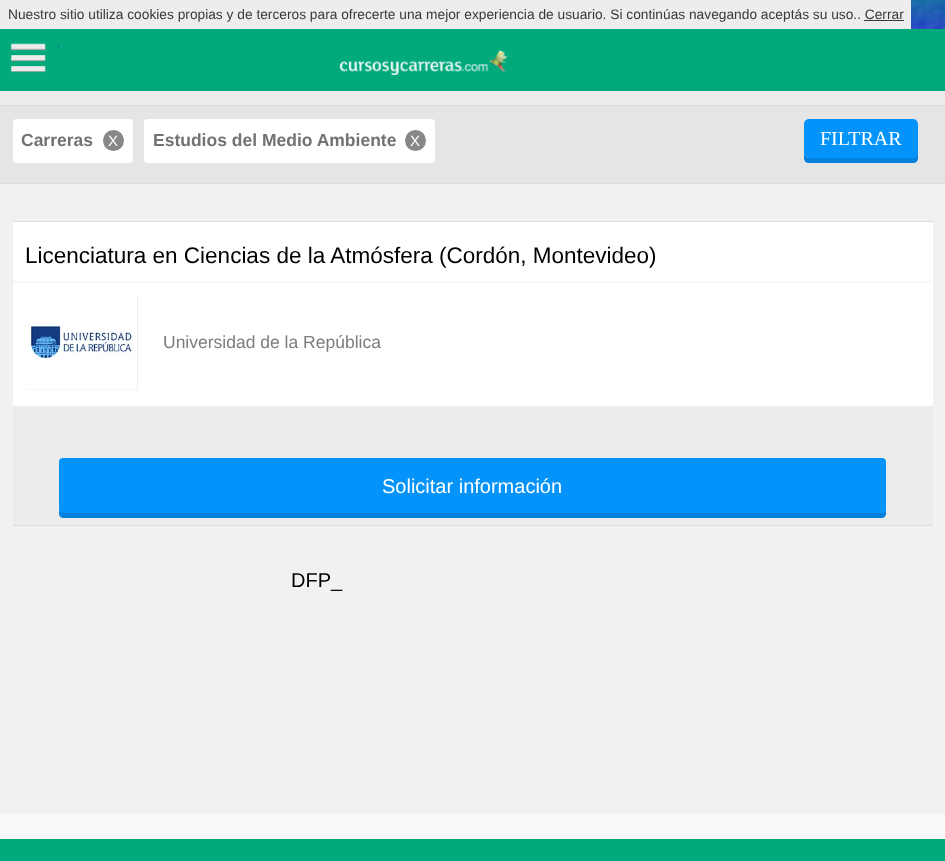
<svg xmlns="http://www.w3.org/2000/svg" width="945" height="861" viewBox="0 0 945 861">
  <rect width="100%" height="100%" fill="rgb(249,249,249)"/>
  <rect x="0" y="0" width="911" height="29" fill="rgb(237,236,239)"/>
  <text x="8" y="19" font-family="Liberation Sans" font-size="13.75" fill="rgb(57,57,57)">Nuestro sitio utiliza cookies propias y de terceros para ofrecerte una mejor experiencia de usuario. Si continúas navegando aceptás su uso.. Cerrar</text>
  <rect x="864" y="20" width="40" height="1" fill="rgb(57,57,57)"/>
  <rect x="0" y="29" width="945" height="62" fill="rgb(1,169,123)"/>
  <image x="11" y="43" width="49" height="30" href="pic1.png"/>
  <image x="340" y="50" width="168" height="25" href="pic2.png"/>
  <image x="911" y="0" width="34" height="29" href="pic3.png"/>
  <rect x="0" y="91" width="945" height="14" fill="rgb(236,236,236)"/>
  <rect x="0" y="105" width="945" height="1" fill="rgb(221,221,221)"/>
  <rect x="0" y="106" width="945" height="77" fill="rgb(229,229,229)"/>
  <rect x="0" y="183" width="945" height="1" fill="rgb(221,221,221)"/>
  <rect x="13" y="119" width="120" height="44" rx="4" fill="rgb(255,255,255)"/>
  <text x="21" y="146" font-family="Liberation Sans" font-size="17.5" font-weight="bold" fill="rgb(115,114,114)">Carreras</text>
  <circle cx="113.5" cy="140.5" r="10.5" fill="rgb(135,135,135)"/>
  <text x="108" y="146" font-family="Liberation Sans" font-size="15" fill="rgb(255,255,255)">X</text>
  <rect x="144" y="119" width="291" height="44" rx="4" fill="rgb(255,255,255)"/>
  <text x="153" y="146" font-family="Liberation Sans" font-size="17.5" font-weight="bold" fill="rgb(115,114,114)">Estudios del Medio Ambiente</text>
  <circle cx="415.5" cy="140.5" r="10.5" fill="rgb(135,135,135)"/>
  <text x="410" y="146" font-family="Liberation Sans" font-size="15" fill="rgb(255,255,255)">X</text>
  <path d="M804 154V158C804 161 806 163 809 163H913C916 163 918 161 918 158V129V127V152C918 155 915 158 912 158H809C807 158 805 156 804 154Z" fill="rgb(2,128,218)"/>
  <rect x="804" y="119" width="114" height="39" rx="5" fill="rgb(3,147,250)"/>
  <text x="820" y="145" font-family="Liberation Serif" font-size="20" fill="rgb(255,255,255)">FILTRAR</text>
  <rect x="0" y="184" width="945" height="630" fill="rgb(241,241,241)"/>
  <rect x="13" y="222" width="920" height="184" fill="rgb(255,255,255)"/>
  <rect x="13" y="221" width="920" height="1" fill="rgb(221,221,221)"/>
  <rect x="13" y="525" width="920" height="1" fill="rgb(221,221,221)"/>
  <text x="25" y="263" font-family="Liberation Sans" font-size="22.5" fill="rgb(0,0,0)">Licenciatura en Ciencias de la Atmósfera (Cordón, Montevideo)</text>
  <path d="M12.5 282H932.5" fill="none" stroke="rgb(221,221,221)" stroke-width="1.2" stroke-dasharray="1.25 1.25"/>
  <rect x="25" y="295" width="113" height="95" fill="rgb(221,221,221)"/>
  <image x="25" y="295" width="113" height="95" href="pic4.png"/>
  <text x="163" y="348" font-family="Liberation Sans" font-size="17.5" fill="rgb(124,124,124)">Universidad de la República</text>
  <rect x="13" y="406" width="920" height="119" fill="rgb(236,236,236)"/>
  <path d="M59 510V514C59 516 61 518 63 518H882C884 518 886 516 886 514V510C885 512 884 512 882 512H62C61 512 60 512 59 510Z" fill="rgb(2,128,218)"/>
  <rect x="59" y="458" width="827" height="55" rx="4" fill="rgb(3,147,250)"/>
  <text x="382" y="493" font-family="Liberation Sans" font-size="20" fill="rgb(255,255,255)">Solicitar información</text>
  <text x="291" y="587" font-family="Liberation Sans" font-size="20" fill="rgb(0,0,0)">DFP_</text>
  <rect x="0" y="839" width="945" height="22" fill="rgb(1,169,123)"/>
</svg>
